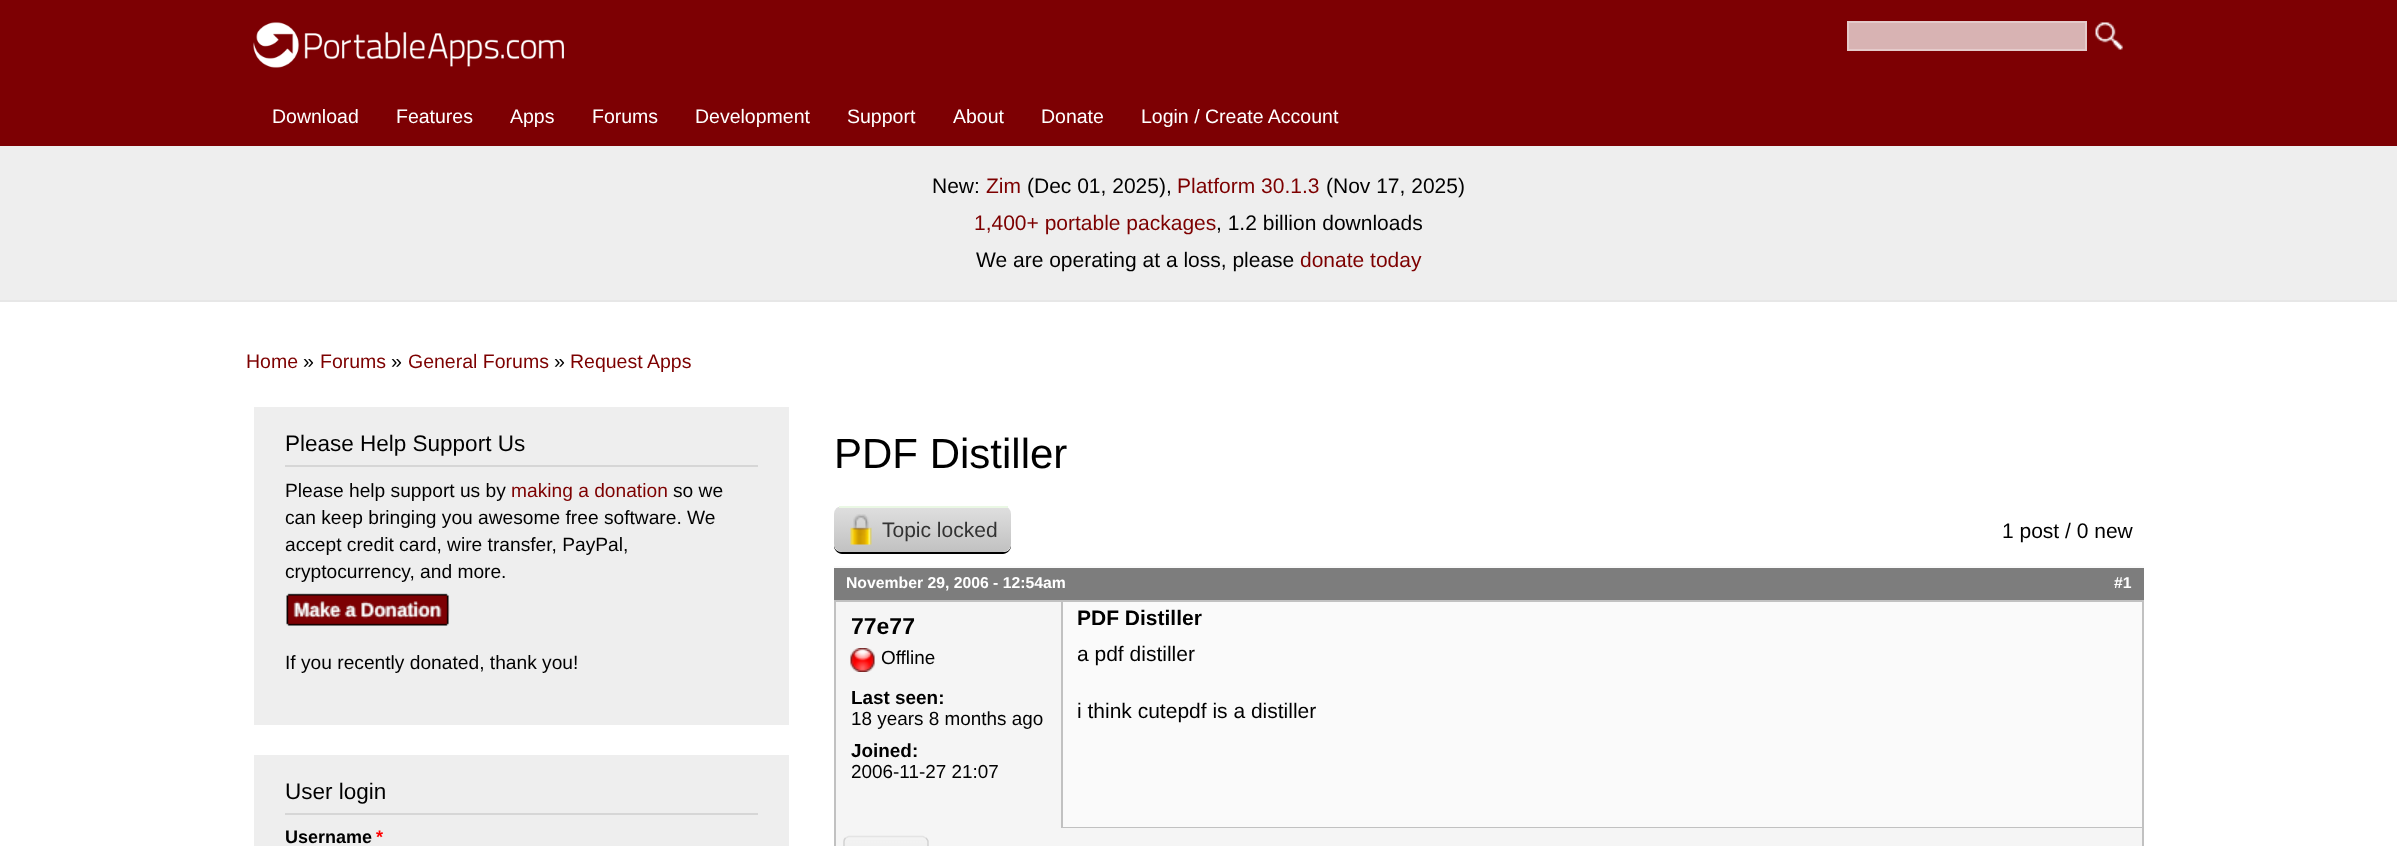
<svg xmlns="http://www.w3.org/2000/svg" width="2397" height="846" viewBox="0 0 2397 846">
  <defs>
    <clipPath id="clip1"><rect x="834" y="506" width="177" height="46" rx="8"/></clipPath>
    <linearGradient id="g1" gradientUnits="userSpaceOnUse" x1="834" y1="507" x2="834" y2="552"><stop offset="0" stop-color="rgb(223,223,223)"/><stop offset="1" stop-color="rgb(193,193,193)"/></linearGradient>
  </defs>
  <rect width="100%" height="100%" fill="rgb(255,255,255)"/>
  <rect x="0" y="0" width="2397" height="146" fill="rgb(125,0,3)"/>
  <image x="253" y="22" width="311" height="46" href="pic1.png"/>
  <rect x="1848" y="22" width="238" height="28" fill="rgb(216,179,179)" stroke="rgb(228,202,202)" stroke-width="2"/>
  <image x="2095" y="22" width="28" height="28" href="pic2.png"/>
  <g font-family="Arimo" font-size="19.5" fill="rgb(255,255,255)">
    <text x="272" y="123">Download</text>
    <text x="396" y="123">Features</text>
    <text x="510" y="123">Apps</text>
    <text x="592" y="123">Forums</text>
    <text x="695" y="123">Development</text>
    <text x="847" y="123">Support</text>
    <text x="953" y="123">About</text>
    <text x="1041" y="123">Donate</text>
    <text x="1141" y="123">Login / Create Account</text>
  </g>
  <rect x="0" y="146" width="2397" height="154" fill="rgb(238,238,238)"/>
  <rect x="0" y="300" width="2397" height="2" fill="rgb(231,231,231)"/>
  <text x="932" y="193" font-family="Arimo" font-size="21" fill="rgb(0,0,0)">New:</text>
  <text x="986" y="193" font-family="Arimo" font-size="21" fill="rgb(125,0,0)">Zim</text>
  <text x="1027" y="193" font-family="Arimo" font-size="21" fill="rgb(0,0,0)">(Dec 01, 2025),</text>
  <text x="1177" y="193" font-family="Arimo" font-size="21" fill="rgb(125,0,0)">Platform 30.1.3</text>
  <text x="1326" y="193" font-family="Arimo" font-size="21" fill="rgb(0,0,0)">(Nov 17, 2025)</text>
  <text x="974" y="230" font-family="Arimo" font-size="21" fill="rgb(125,0,0)">1,400+ portable packages</text>
  <g font-family="Arimo" font-size="21" fill="rgb(0,0,0)">
    <text x="1216" y="230">, 1.2 billion downloads</text>
    <text x="976" y="267">We are operating at a loss, please</text>
  </g>
  <text x="1300" y="267" font-family="Arimo" font-size="21" fill="rgb(125,0,0)">donate today</text>
  <text x="246" y="368" font-family="Arimo" font-size="19.5" fill="rgb(125,0,0)">Home</text>
  <text x="303" y="368" font-family="Arimo" font-size="19.5" fill="rgb(0,0,0)">»</text>
  <text x="320" y="368" font-family="Arimo" font-size="19.5" fill="rgb(125,0,0)">Forums</text>
  <text x="391" y="368" font-family="Arimo" font-size="19.5" fill="rgb(0,0,0)">»</text>
  <text x="408" y="368" font-family="Arimo" font-size="19.5" fill="rgb(125,0,0)">General Forums</text>
  <text x="554" y="368" font-family="Arimo" font-size="19.5" fill="rgb(0,0,0)">»</text>
  <text x="570" y="368" font-family="Arimo" font-size="19.5" fill="rgb(125,0,0)">Request Apps</text>
  <rect x="254" y="407" width="535" height="318" fill="rgb(238,238,238)"/>
  <rect x="285" y="465" width="473" height="2" fill="rgb(214,214,214)"/>
  <text x="285" y="451" font-family="Arimo" font-size="22.5" fill="rgb(0,0,0)">Please Help Support Us</text>
  <text x="285" y="497" font-family="Arimo" font-size="19.2" fill="rgb(0,0,0)">Please help support us by</text>
  <text x="511" y="497" font-family="Arimo" font-size="19.2" fill="rgb(125,0,0)">making a donation</text>
  <g font-family="Arimo" font-size="19.2" fill="rgb(0,0,0)">
    <text x="673" y="497">so we</text>
    <text>
      <tspan x="285" y="524">can keep bringing you awesome free software. We</tspan>
      <tspan x="285" y="551">accept credit card, wire transfer, PayPal,</tspan>
      <tspan x="285" y="578">cryptocurrency, and more.</tspan>
    </text>
  </g>
  <image x="286" y="593" width="164" height="33" href="pic3.png"/>
  <text x="285" y="669" font-family="Arimo" font-size="19.2" fill="rgb(0,0,0)">If you recently donated, thank you!</text>
  <rect x="254" y="755" width="535" height="91" fill="rgb(238,238,238)"/>
  <rect x="285" y="813" width="473" height="2" fill="rgb(214,214,214)"/>
  <text x="285" y="799" font-family="Arimo" font-size="22.5" fill="rgb(0,0,0)">User login</text>
  <text x="285" y="843" font-family="Arimo" font-size="18" font-weight="bold" fill="rgb(0,0,0)">Username</text>
  <text x="376" y="843" font-family="Arimo" font-size="18" font-weight="bold" fill="rgb(255,0,0)">*</text>
  <text x="834" y="468" font-family="Arimo" font-size="42" fill="rgb(0,0,0)">PDF Distiller</text>
  <path d="M834 544V546C834 550 838 554 842 554H1003C1007 554 1011 550 1011 546V544C1011 549 1008 552 1004 552H842C837 552 834 549 834 544Z" fill="rgb(0,0,0)"/>
  <g clip-path="url(#clip1)">
    <path d="M834 507H1011V544C1011 548.5 1007.5 552 1003 552H842C837.5 552 834 548.5 834 544Z" fill="url(#g1)"/>
  </g>
  <rect x="839" y="506" width="169" height="2" fill="rgb(234,248,228)"/>
  <image x="850" y="514" width="22" height="31" href="pic4.png"/>
  <text x="882" y="537" font-family="Liberation Sans" font-size="21" fill="rgb(51,51,51)">Topic locked</text>
  <text x="2002" y="538" font-family="Arimo" font-size="21" fill="rgb(0,0,0)">1 post / 0 new</text>
  <rect x="834" y="568" width="1310" height="32" fill="rgb(125,125,125)"/>
  <rect x="834" y="566" width="1310" height="2" fill="rgb(250,250,250)"/>
  <rect x="834" y="600" width="1310" height="2" fill="rgb(193,193,193)"/>
  <g font-family="Arimo" font-size="15.75" font-weight="bold" fill="rgb(255,255,255)">
    <text x="846" y="588">November 29, 2006 - 12:54am</text>
    <text x="2114" y="588">#1</text>
  </g>
  <rect x="836" y="602" width="225" height="226" fill="rgb(245,245,245)"/>
  <rect x="2142" y="602" width="2" height="244" fill="rgb(193,193,193)"/>
  <rect x="834" y="602" width="2" height="244" fill="rgb(193,193,193)"/>
  <text x="851" y="634" font-family="Arimo" font-size="23" font-weight="bold" fill="rgb(0,0,0)">77e77</text>
  <image x="850" y="648" width="25" height="24" href="pic5.png"/>
  <text x="881" y="664" font-family="Arimo" font-size="18.9" fill="rgb(0,0,0)">Offline</text>
  <text x="851" y="704" font-family="Arimo" font-size="18.9" font-weight="bold" fill="rgb(0,0,0)">Last seen:</text>
  <text x="851" y="725" font-family="Arimo" font-size="18.9" fill="rgb(0,0,0)">18 years 8 months ago</text>
  <text x="851" y="757" font-family="Arimo" font-size="18.9" font-weight="bold" fill="rgb(0,0,0)">Joined:</text>
  <text x="851" y="778" font-family="Arimo" font-size="18.9" fill="rgb(0,0,0)">2006-11-27 21:07</text>
  <rect x="1063" y="602" width="1079" height="225" fill="rgb(250,250,250)"/>
  <rect x="1061" y="827" width="1081" height="1" fill="rgb(193,193,193)"/>
  <rect x="1061" y="602" width="2" height="226" fill="rgb(193,193,193)"/>
  <text x="1077" y="625" font-family="Arimo" font-size="21" font-weight="bold" fill="rgb(0,0,0)">PDF Distiller</text>
  <g font-family="Arimo" font-size="21" fill="rgb(0,0,0)">
    <text x="1077" y="661">a pdf distiller</text>
    <text x="1077" y="718">i think cutepdf is a distiller</text>
  </g>
  <rect x="836" y="828" width="1306" height="18" fill="rgb(245,245,245)"/>
  <rect x="843" y="836" width="86" height="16" rx="6" fill="rgb(255,255,255)"/>
  <image x="843" y="837" width="86" height="9" href="pic6.png"/>
  <path d="M845.5 838L848.5 836.5H923L926 838" fill="none" stroke="rgb(228,228,228)" stroke-width="1.5"/>
  <path d="M926 838C927 839 928 840 928 841.5V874.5C928 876 927 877 926 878" fill="none" stroke="rgb(210,210,210)" stroke-width="1.5"/>
  <path d="M845.5 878C844.5 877 844 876 844 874.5V841.5C844 840 844.5 839 845.5 838" fill="none" stroke="rgb(210,210,210)" stroke-width="1.5"/>
</svg>
